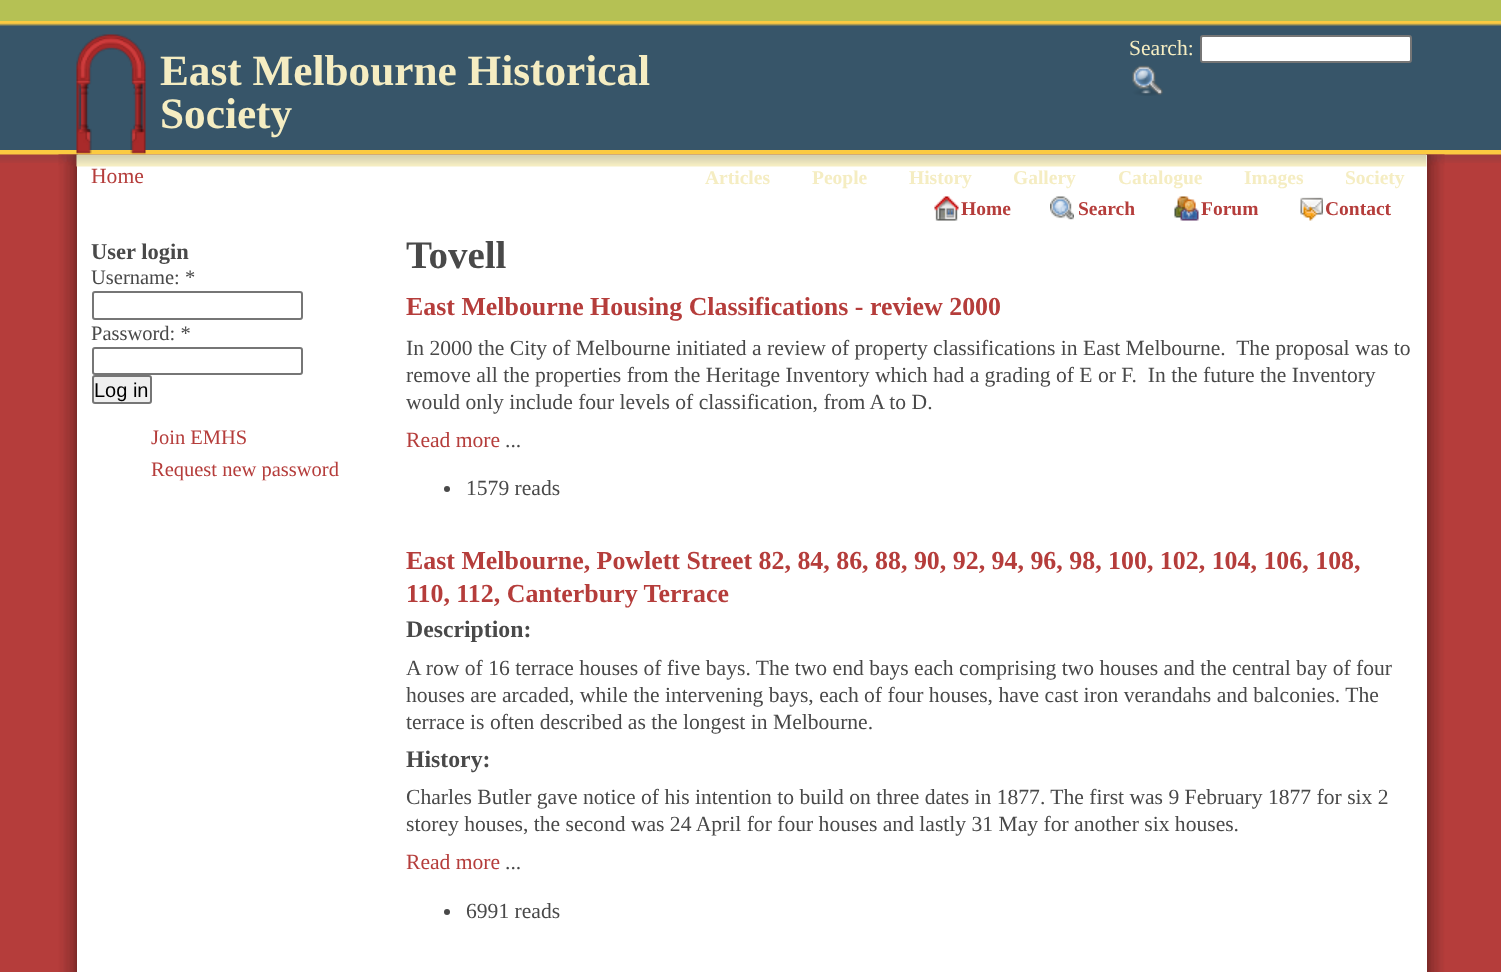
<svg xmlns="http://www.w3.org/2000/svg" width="1501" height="972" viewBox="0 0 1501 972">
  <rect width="100%" height="100%" fill="rgb(181,193,84)"/>
  <rect x="0" y="26" width="1501" height="124" fill="rgb(55,85,105)"/>
  <image x="0" y="21" width="1501" height="5" href="pic1.png"/>
  <rect x="0" y="150" width="1501" height="5" fill="rgb(251,202,65)"/>
  <image x="0" y="154" width="1501" height="9" href="pic4.png"/>
  <rect x="0" y="163" width="1501" height="809" fill="rgb(181,61,59)"/>
  <image x="58" y="154" width="20" height="818" href="pic6.png"/>
  <image x="1426" y="154" width="19" height="818" href="pic5.png"/>
  <rect x="77" y="155" width="1350" height="817" fill="rgb(255,255,255)"/>
  <image x="76" y="154" width="1351" height="13" href="pic7.png"/>
  <image x="76" y="34" width="70" height="121" href="pic2.png"/>
  <text x="1129" y="55" font-family="Liberation Serif" font-size="21.6" fill="rgb(245,237,194)">Search:</text>
  <rect x="1201" y="36" width="210" height="26" rx="2" fill="rgb(255,255,255)" stroke="rgb(118,118,118)" stroke-width="2"/>
  <image x="1132" y="65" width="31" height="31" href="pic3.png"/>
  <g font-family="Liberation Serif" font-size="43.25" font-weight="bold" fill="rgb(245,237,194)">
    <text>
      <tspan x="160" y="85">East Melbourne Historical</tspan>
      <tspan x="160" y="128">Society</tspan>
    </text>
  </g>
  <g font-family="Liberation Serif" font-size="19.5" font-weight="bold" fill="rgb(245,237,194)">
    <text x="705" y="184">Articles</text>
    <text x="812" y="184">People</text>
    <text x="909" y="184">History</text>
    <text x="1013" y="184">Gallery</text>
    <text x="1118" y="184">Catalogue</text>
    <text x="1244" y="184">Images</text>
    <text x="1345" y="184">Society</text>
  </g>
  <text x="91" y="183" font-family="Liberation Serif" font-size="21.6" fill="rgb(181,61,59)">Home</text>
  <image x="934" y="196" width="25" height="25" href="pic8.png"/>
  <text x="961" y="215" font-family="Liberation Serif" font-size="19.5" font-weight="bold" fill="rgb(181,61,59)">Home</text>
  <image x="1050" y="196" width="24" height="24" href="pic9.png"/>
  <text x="1078" y="215" font-family="Liberation Serif" font-size="19.5" font-weight="bold" fill="rgb(181,61,59)">Search</text>
  <image x="1174" y="196" width="25" height="25" href="pic10.png"/>
  <text x="1201" y="215" font-family="Liberation Serif" font-size="19.5" font-weight="bold" fill="rgb(181,61,59)">Forum</text>
  <image x="1300" y="197" width="23" height="24" href="pic11.png"/>
  <text x="1325" y="215" font-family="Liberation Serif" font-size="19.5" font-weight="bold" fill="rgb(181,61,59)">Contact</text>
  <text x="91" y="259" font-family="Liberation Serif" font-size="22.5" font-weight="bold" fill="rgb(73,73,73)">User login</text>
  <text x="91" y="284" font-family="Liberation Serif" font-size="20.5" fill="rgb(73,73,73)">Username: *</text>
  <rect x="93" y="292" width="209" height="27" rx="2" fill="none" stroke="rgb(118,118,118)" stroke-width="2"/>
  <text x="91" y="340" font-family="Liberation Serif" font-size="20.5" fill="rgb(73,73,73)">Password: *</text>
  <rect x="93" y="348" width="209" height="26" rx="2" fill="none" stroke="rgb(118,118,118)" stroke-width="2"/>
  <rect x="93" y="376" width="58" height="27" rx="2" fill="rgb(239,239,239)" stroke="rgb(118,118,118)" stroke-width="2"/>
  <text x="94" y="397" font-family="Liberation Sans" font-size="20" fill="rgb(0,0,0)">Log in</text>
  <g font-family="Liberation Serif" font-size="20.5" fill="rgb(181,61,59)">
    <text>
      <tspan x="151" y="444">Join EMHS</tspan>
      <tspan x="151" y="476">Request new password</tspan>
    </text>
  </g>
  <text x="406" y="268" font-family="Liberation Serif" font-size="39" font-weight="bold" fill="rgb(73,73,73)">Tovell</text>
  <text x="406" y="315" font-family="Liberation Serif" font-size="25.9" font-weight="bold" fill="rgb(181,61,59)">East Melbourne Housing Classifications - review 2000</text>
  <g font-family="Liberation Serif" font-size="21.6" fill="rgb(73,73,73)">
    <text xml:space="preserve"><tspan x="406" y="355">In 2000 the City of Melbourne initiated a review of property classifications in East Melbourne.  The proposal was to</tspan><tspan x="406" y="382">remove all the properties from the Heritage Inventory which had a grading of E or F.  In the future the Inventory</tspan><tspan x="406" y="409">would only include four levels of classification, from A to D.</tspan></text>
  </g>
  <text x="406" y="447" font-family="Liberation Serif" font-size="21.6" fill="rgb(181,61,59)">Read more</text>
  <text x="505" y="447" font-family="Liberation Serif" font-size="21.6" fill="rgb(73,73,73)">...</text>
  <circle cx="447" cy="489" r="3" fill="rgb(73,73,73)"/>
  <text x="466" y="495" font-family="Liberation Serif" font-size="21.6" fill="rgb(73,73,73)">1579 reads</text>
  <g font-family="Liberation Serif" font-size="25.9" font-weight="bold" fill="rgb(181,61,59)">
    <text>
      <tspan x="406" y="569">East Melbourne, Powlett Street 82, 84, 86, 88, 90, 92, 94, 96, 98, 100, 102, 104, 106, 108,</tspan>
      <tspan x="406" y="602">110, 112, Canterbury Terrace</tspan>
    </text>
  </g>
  <text x="406" y="637" font-family="Liberation Serif" font-size="23.75" font-weight="bold" fill="rgb(73,73,73)">Description:</text>
  <g font-family="Liberation Serif" font-size="21.6" fill="rgb(73,73,73)">
    <text>
      <tspan x="406" y="675">A row of 16 terrace houses of five bays. The two end bays each comprising two houses and the central bay of four</tspan>
      <tspan x="406" y="702">houses are arcaded, while the intervening bays, each of four houses, have cast iron verandahs and balconies. The</tspan>
      <tspan x="406" y="729">terrace is often described as the longest in Melbourne.</tspan>
    </text>
  </g>
  <text x="406" y="767" font-family="Liberation Serif" font-size="23.75" font-weight="bold" fill="rgb(73,73,73)">History:</text>
  <g font-family="Liberation Serif" font-size="21.6" fill="rgb(73,73,73)">
    <text>
      <tspan x="406" y="804">Charles Butler gave notice of his intention to build on three dates in 1877. The first was 9 February 1877 for six 2</tspan>
      <tspan x="406" y="831">storey houses, the second was 24 April for four houses and lastly 31 May for another six houses.</tspan>
    </text>
  </g>
  <text x="406" y="869" font-family="Liberation Serif" font-size="21.6" fill="rgb(181,61,59)">Read more</text>
  <text x="505" y="869" font-family="Liberation Serif" font-size="21.6" fill="rgb(73,73,73)">...</text>
  <circle cx="447" cy="912" r="3" fill="rgb(73,73,73)"/>
  <text x="466" y="918" font-family="Liberation Serif" font-size="21.6" fill="rgb(73,73,73)">6991 reads</text>
</svg>
